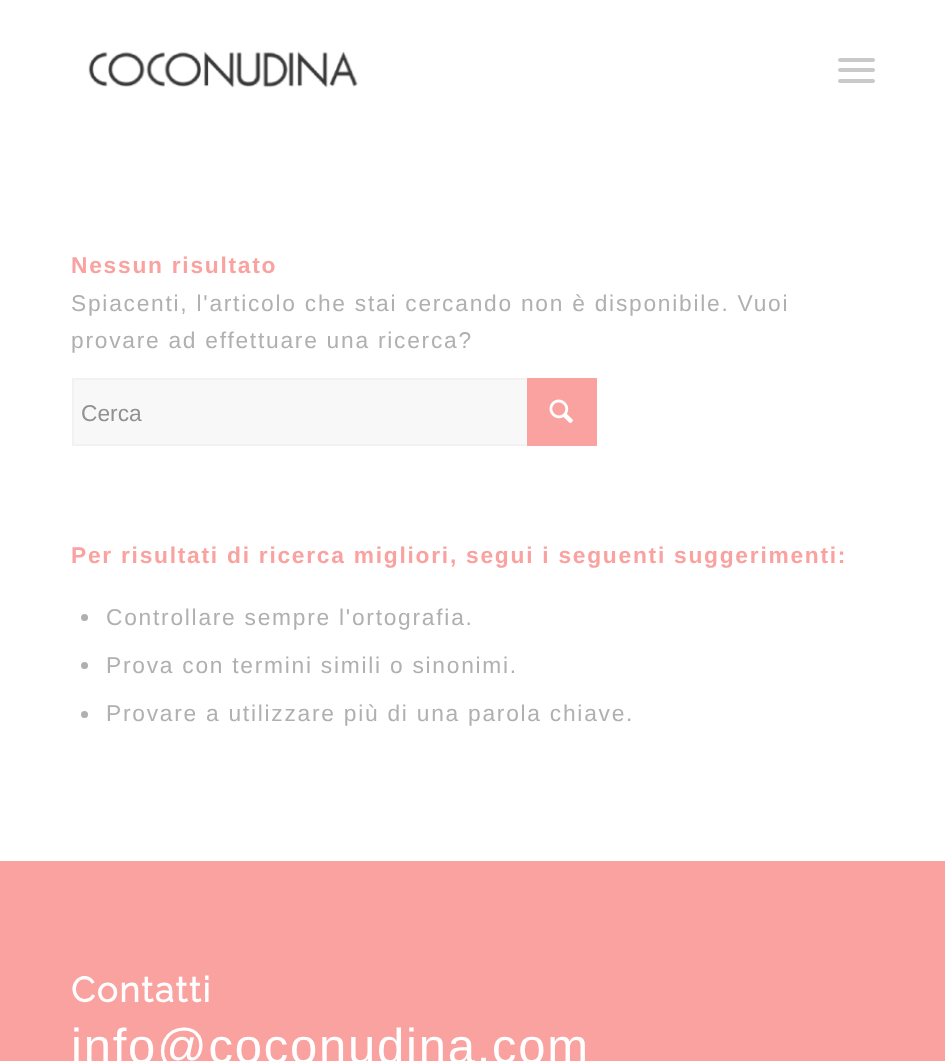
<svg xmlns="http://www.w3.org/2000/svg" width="945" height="1061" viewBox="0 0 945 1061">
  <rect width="100%" height="100%" fill="rgb(255,255,255)"/>
  <image x="88" y="51" width="270" height="37" href="pic1.png"/>
  <rect x="838" y="68" width="37" height="4" rx="2" fill="rgb(201,201,201)"/>
  <rect x="838" y="58" width="37" height="4" rx="2" fill="rgb(201,201,201)"/>
  <rect x="838" y="79" width="37" height="4" rx="2" fill="rgb(201,201,201)"/>
  <text x="71" y="273" font-family="Liberation Sans" font-size="22.75" font-weight="bold" letter-spacing="1.75" fill="rgb(249,162,160)">Nessun risultato</text>
  <g font-family="Liberation Sans" font-size="22.75" letter-spacing="1.75" fill="rgb(176,176,176)">
    <text>
      <tspan x="71" y="311">Spiacenti, l'articolo che stai cercando non è disponibile. Vuoi</tspan>
      <tspan x="71" y="348">provare ad effettuare una ricerca?</tspan>
    </text>
  </g>
  <rect x="74" y="380" width="453" height="64" fill="rgb(248,248,248)"/>
  <rect x="73" y="379" width="523" height="66" fill="none" stroke="rgb(242,242,242)" stroke-width="2"/>
  <text x="81" y="421" font-family="Liberation Sans" font-size="22.75" fill="rgb(145,145,145)">Cerca</text>
  <rect x="527" y="378" width="70" height="68" fill="rgb(249,162,160)"/>
  <image x="549" y="399" width="24" height="25" href="pic2.png"/>
  <text x="71" y="563" font-family="Liberation Sans" font-size="22.75" font-weight="bold" letter-spacing="1.75" fill="rgb(249,162,160)">Per risultati di ricerca migliori, segui i seguenti suggerimenti:</text>
  <circle cx="84.5" cy="617.5" r="3.5" fill="rgb(176,176,176)"/>
  <text x="106" y="625" font-family="Liberation Sans" font-size="22.75" letter-spacing="1.75" fill="rgb(176,176,176)">Controllare sempre l'ortografia.</text>
  <circle cx="84.5" cy="665.5" r="3.5" fill="rgb(176,176,176)"/>
  <text x="106" y="673" font-family="Liberation Sans" font-size="22.75" letter-spacing="1.75" fill="rgb(176,176,176)">Prova con termini simili o sinonimi.</text>
  <circle cx="84.5" cy="714.5" r="3.5" fill="rgb(176,176,176)"/>
  <text x="106" y="721" font-family="Liberation Sans" font-size="22.75" letter-spacing="1.75" fill="rgb(176,176,176)">Provare a utilizzare più di una parola chiave.</text>
  <rect x="0" y="861" width="945" height="200" fill="rgb(249,162,160)"/>
  <text x="71" y="1002" font-family="Raleway" font-size="35" font-weight="bold" letter-spacing="1.75" fill="rgb(255,255,255)">Contatti</text>
  <text x="71" y="1063" font-family="Liberation Sans" font-size="49" letter-spacing="1.75" fill="rgb(255,255,255)">info@coconudina.com</text>
</svg>
